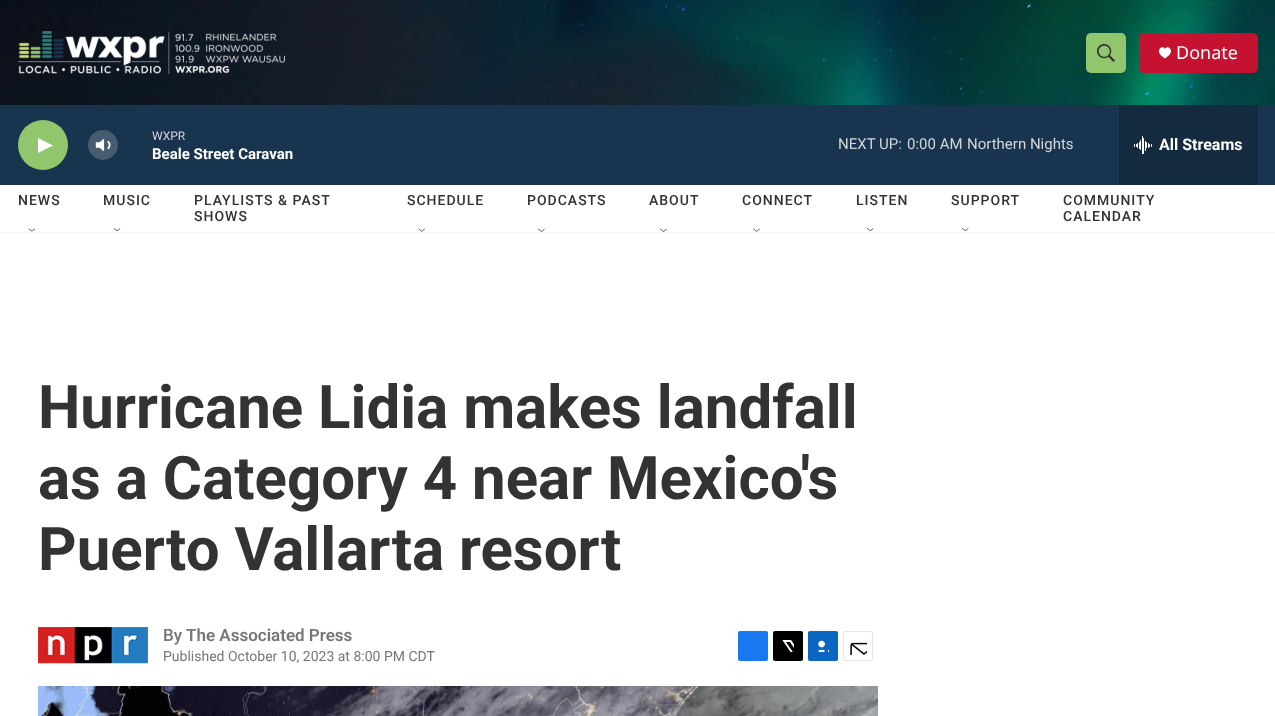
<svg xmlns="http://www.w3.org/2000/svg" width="1275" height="716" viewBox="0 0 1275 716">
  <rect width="100%" height="100%" fill="rgb(255,255,255)"/>
  <rect x="0" y="232" width="1275" height="1" fill="rgb(245,245,245)"/>
  <image x="0" y="0" width="1275" height="105" href="pic1.png"/>
  <image x="18" y="31" width="267" height="43" href="pic2.png"/>
  <rect x="1086" y="33" width="40" height="40" rx="5" fill="rgb(146,198,108)"/>
  <image x="1097" y="44" width="18" height="18" href="pic3.png"/>
  <rect x="1139" y="33" width="119" height="40" rx="5" fill="rgb(196,18,48)"/>
  <path d="M1165 49C1163 44 1152.5 51 1165 58.5C1177.5 51 1167 44 1165 49Z" fill="rgb(255,255,255)"/>
  <text x="1176" y="59" font-family="Noto Sans" font-size="18" fill="rgb(255,255,255)">Donate</text>
  <rect x="0" y="105" width="1275" height="80" fill="rgb(25,52,78)"/>
  <circle cx="43" cy="145" r="25" fill="rgb(146,198,108)"/>
  <path d="M38 138L53 145.5L38 153Z" fill="rgb(255,255,255)"/>
  <image x="95" y="138" width="16" height="14" href="pic4.png"/>
  <circle cx="103" cy="145" r="15" fill="rgba(255,255,255,0.2)"/>
  <text x="152" y="140" font-family="'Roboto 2'" font-size="12" fill="rgb(209,214,220)">WXPR</text>
  <text x="152" y="159" font-family="'Roboto 2'" font-size="15" font-weight="bold" fill="rgb(255,255,255)">Beale Street Caravan</text>
  <g font-family="'Roboto 2'" font-size="15" fill="rgb(209,214,220)">
    <text x="838" y="149">NEXT UP:</text>
    <text x="907" y="149">0:00 AM</text>
    <text x="967" y="149">Northern Nights</text>
  </g>
  <rect x="1119" y="105" width="139" height="80" fill="rgb(20,42,62)"/>
  <image x="1134" y="136" width="18" height="18" href="pic5.png"/>
  <text x="1159" y="150" font-family="'Roboto 2'" font-size="16" font-weight="bold" fill="rgb(255,255,255)">All Streams</text>
  <text x="18" y="205" font-family="'Roboto 2'" font-size="14" font-weight="500" letter-spacing="1" fill="rgb(51,51,51)">NEWS</text>
  <image x="28" y="228" width="7" height="4" href="pic6.png"/>
  <text x="103" y="205" font-family="'Roboto 2'" font-size="14" font-weight="500" letter-spacing="1" fill="rgb(51,51,51)">MUSIC</text>
  <image x="114" y="228" width="7" height="4" href="pic7.png"/>
  <g font-family="'Roboto 2'" font-size="14" font-weight="500" letter-spacing="1" fill="rgb(51,51,51)">
    <text>
      <tspan x="194" y="205">PLAYLISTS &amp; PAST</tspan>
      <tspan x="194" y="221">SHOWS</tspan>
    </text>
    <text x="407" y="205">SCHEDULE</text>
  </g>
  <image x="418" y="228" width="7" height="4" href="pic8.png"/>
  <text x="527" y="205" font-family="'Roboto 2'" font-size="14" font-weight="500" letter-spacing="1" fill="rgb(51,51,51)">PODCASTS</text>
  <image x="538" y="228" width="7" height="4" href="pic9.png"/>
  <text x="649" y="205" font-family="'Roboto 2'" font-size="14" font-weight="500" letter-spacing="1" fill="rgb(51,51,51)">ABOUT</text>
  <image x="660" y="228" width="7" height="4" href="pic10.png"/>
  <text x="742" y="205" font-family="'Roboto 2'" font-size="14" font-weight="500" letter-spacing="1" fill="rgb(51,51,51)">CONNECT</text>
  <image x="753" y="228" width="7" height="4" href="pic11.png"/>
  <text x="856" y="205" font-family="'Roboto 2'" font-size="14" font-weight="500" letter-spacing="1" fill="rgb(51,51,51)">LISTEN</text>
  <image x="867" y="228" width="7" height="3" href="pic12.png"/>
  <text x="951" y="205" font-family="'Roboto 2'" font-size="14" font-weight="500" letter-spacing="1" fill="rgb(51,51,51)">SUPPORT</text>
  <image x="962" y="228" width="7" height="3" href="pic13.png"/>
  <g font-family="'Roboto 2'" font-size="14" font-weight="500" letter-spacing="1" fill="rgb(51,51,51)">
    <text>
      <tspan x="1063" y="205">COMMUNITY</tspan>
      <tspan x="1063" y="221">CALENDAR</tspan>
    </text>
  </g>
  <g font-family="Roboto" font-size="60" font-weight="bold" fill="rgb(51,51,51)">
    <text>
      <tspan x="38" y="428">Hurricane Lidia makes landfall</tspan>
      <tspan x="38" y="499">as a Category 4 near Mexico's</tspan>
      <tspan x="38" y="570">Puerto Vallarta resort</tspan>
    </text>
  </g>
  <image x="38" y="627" width="110" height="37" href="pic14.png"/>
  <text x="163" y="641" font-family="Roboto" font-size="17" font-weight="500" fill="rgb(118,118,118)">By</text>
  <text x="186" y="641" font-family="Roboto" font-size="17" font-weight="600" fill="rgb(118,118,118)">The Associated Press</text>
  <text x="163" y="661" font-family="Roboto" font-size="14" fill="rgb(118,118,118)">Published October 10, 2023 at 8:00 PM CDT</text>
  <rect x="738" y="631" width="30" height="30" rx="2" fill="rgb(23,120,242)"/>
  <rect x="773" y="631" width="30" height="30" rx="2" fill="rgb(0,0,0)"/>
  <image x="782" y="640" width="12" height="12" href="pic15.png"/>
  <rect x="808" y="631" width="30" height="30" rx="2" fill="rgb(10,102,193)"/>
  <image x="818" y="640" width="11" height="12" href="pic16.png"/>
  <rect x="843.5" y="631.5" width="29" height="29" rx="1.5" fill="none" stroke="rgb(230,230,230)"/>
  <image x="850" y="642" width="17" height="13" href="pic17.png"/>
  <image x="38" y="686" width="840" height="30" href="pic18.png"/>
</svg>
